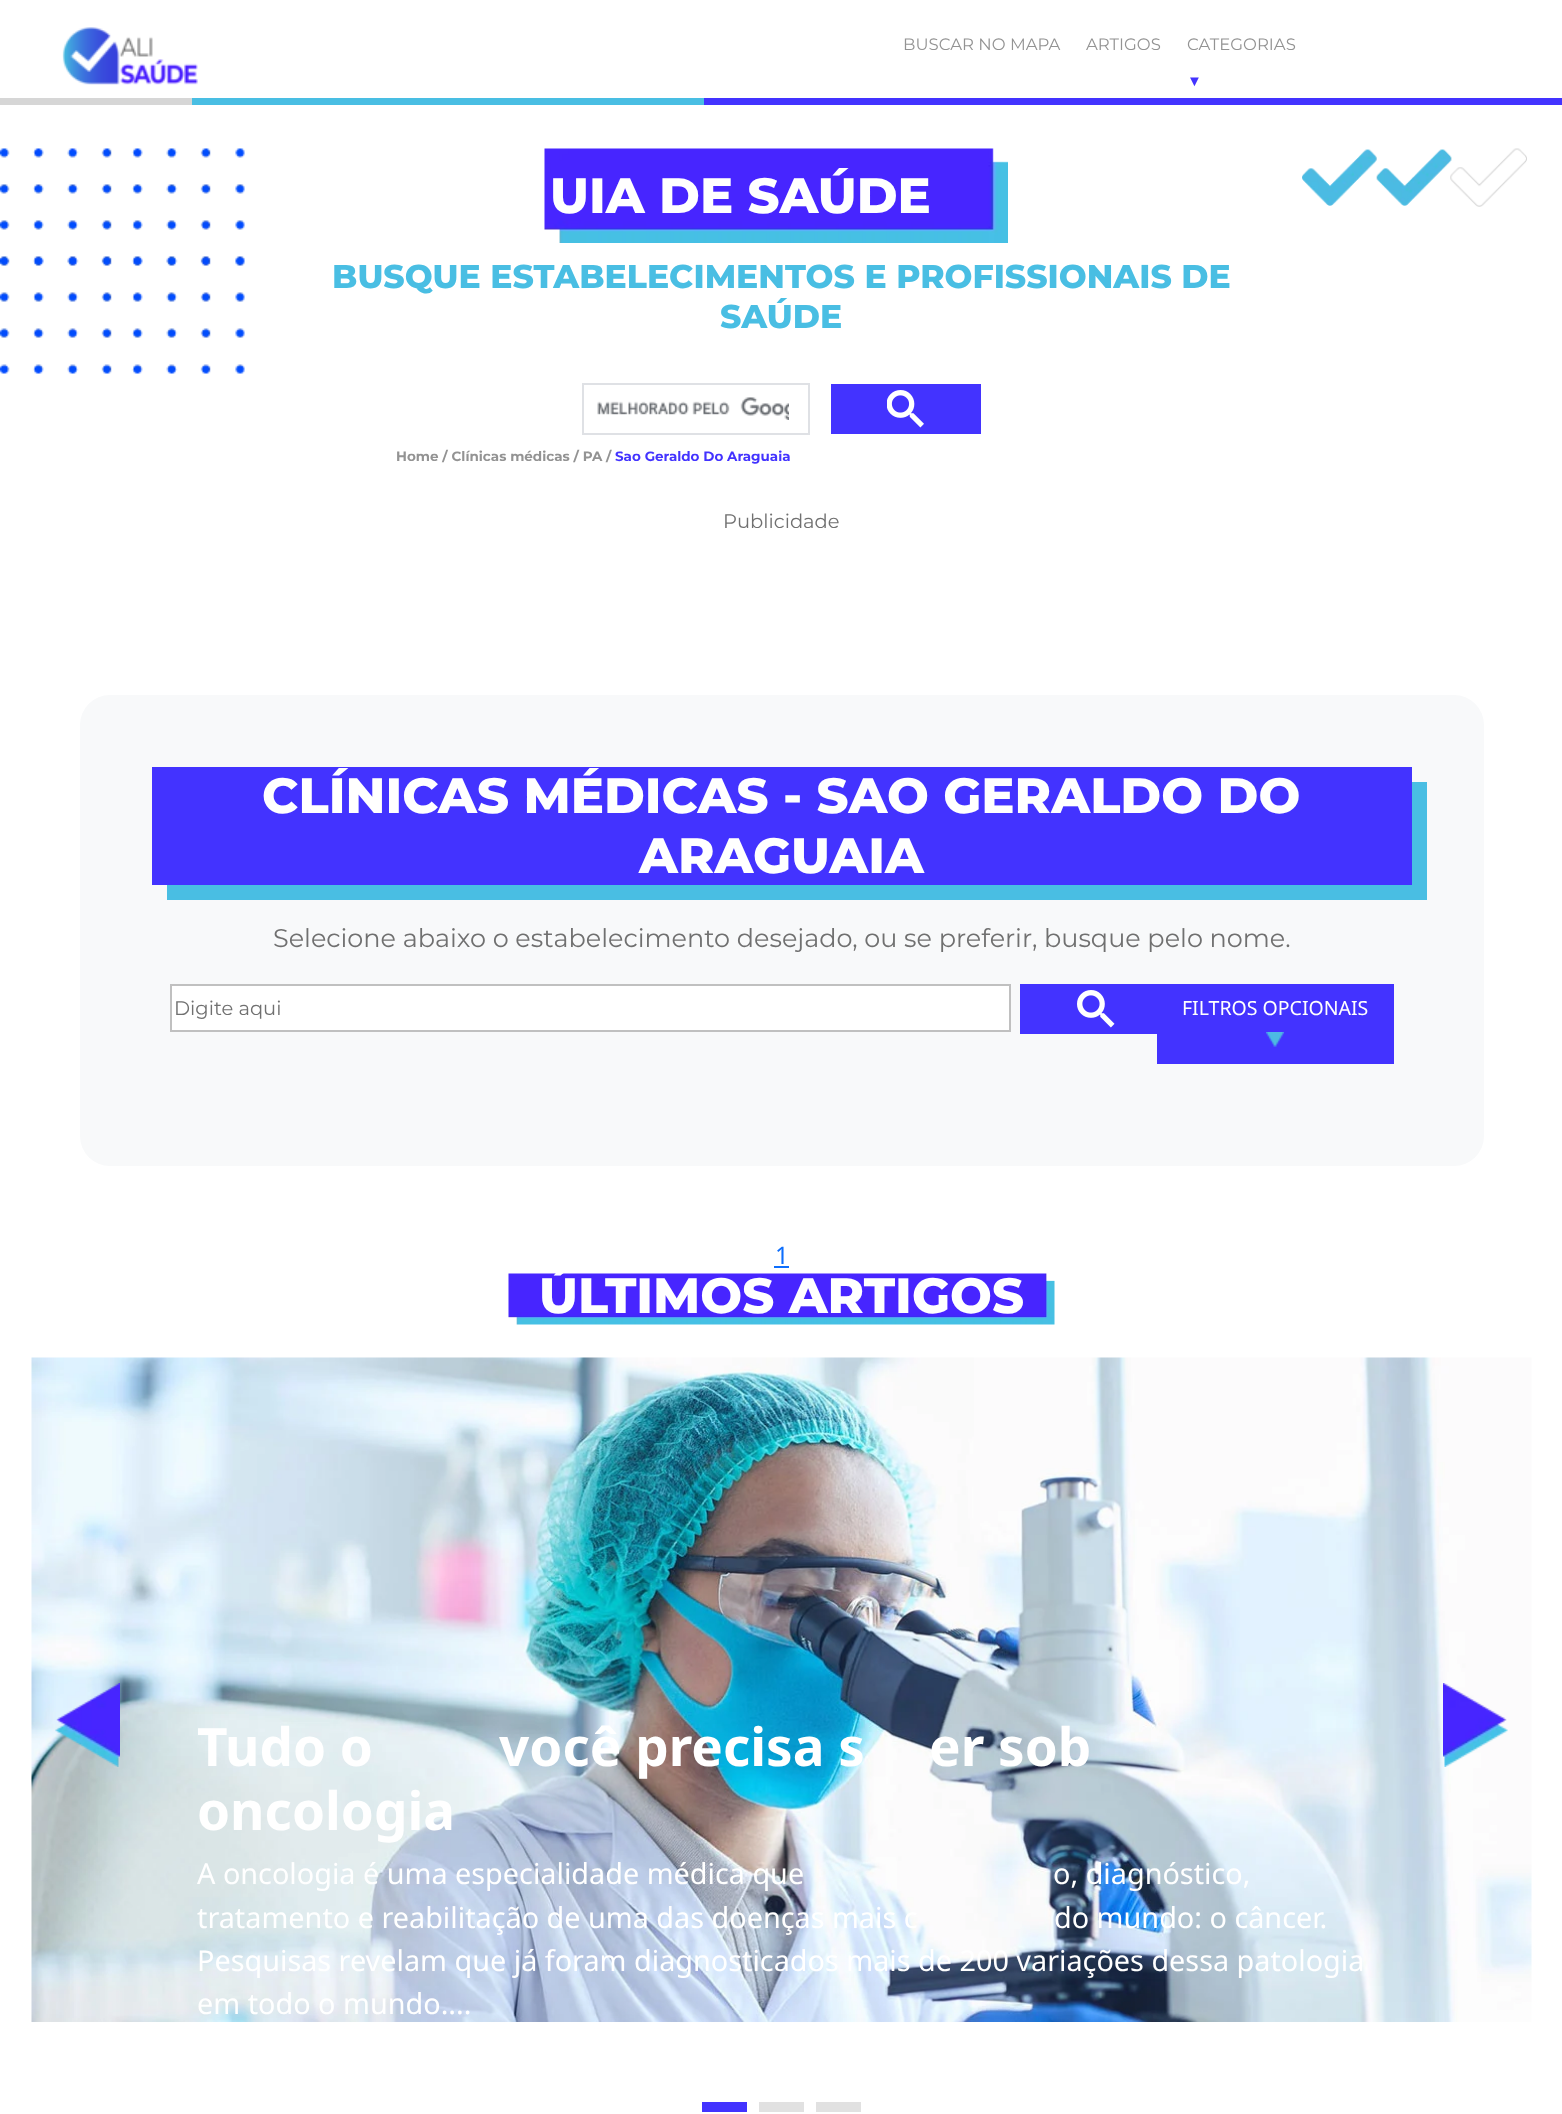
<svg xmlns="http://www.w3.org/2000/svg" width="1562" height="2114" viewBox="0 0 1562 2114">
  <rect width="100%" height="100%" fill="rgb(255,255,255)"/>
  <image x="62" y="27" width="136" height="58" href="pic1.png"/>
  <g font-family="Montserrat" font-size="16.5" fill="rgb(147,147,147)">
    <text x="903" y="50">BUSCAR NO MAPA</text>
    <text x="1086" y="50">ARTIGOS</text>
    <text x="1187" y="50">CATEGORIAS</text>
  </g>
  <text x="1187" y="86" font-family="Liberation Sans" font-size="15" fill="rgb(67,51,255)">▼</text>
  <rect x="0" y="98" width="192" height="7" fill="rgb(214,214,214)"/>
  <rect x="192" y="98" width="512" height="7" fill="rgb(73,190,227)"/>
  <rect x="704" y="98" width="858" height="7" fill="rgb(67,51,255)"/>
  <image x="0" y="148" width="245" height="226" href="pic2.png"/>
  <image x="544" y="148" width="464" height="95" href="pic3.png"/>
  <text x="550" y="213" font-family="Montserrat" font-size="49.5" font-weight="100" fill="rgb(255,255,255)">UIA DE SAÚDE</text>
  <g font-family="Montserrat" font-size="33" font-weight="100" fill="rgb(73,190,227)">
    <text x="332" y="288">BUSQUE ESTABELECIMENTOS E PROFISSIONAIS DE</text>
    <text x="720" y="328">SAÚDE</text>
  </g>
  <rect x="583" y="384" width="226" height="50" fill="none" stroke="rgb(223,225,229)" stroke-width="2"/>
  <image x="597" y="397" width="192" height="23" href="pic4.png"/>
  <rect x="831" y="384" width="150" height="50" fill="rgb(67,51,255)"/>
  <image x="887" y="390" width="37" height="38" href="pic5.png"/>
  <image x="1302" y="148" width="225" height="59" href="pic6.png"/>
  <text x="396" y="461" font-family="Montserrat" font-size="13.5" font-weight="bold" fill="rgb(147,147,147)">Home / Clínicas médicas / PA /</text>
  <text x="615" y="461" font-family="Montserrat" font-size="13.5" font-weight="bold" fill="rgb(67,51,255)">Sao Geraldo Do Araguaia</text>
  <text x="723" y="528" font-family="Montserrat" font-size="19.5" fill="rgb(112,112,112)">Publicidade</text>
  <rect x="80" y="695" width="1404" height="471" rx="30" fill="rgb(248,249,250)"/>
  <path d="M167 885V900H1427V782H1412V885Z" fill="rgb(73,190,227)"/>
  <rect x="152" y="767" width="1260" height="118" fill="rgb(67,51,255)"/>
  <g font-family="Montserrat" font-size="49.5" font-weight="100" fill="rgb(255,255,255)">
    <text x="262" y="813">CLÍNICAS MÉDICAS - SAO GERALDO DO</text>
    <text x="639" y="873">ARAGUAIA</text>
  </g>
  <text x="273" y="947" font-family="Montserrat" font-size="25.5" fill="rgb(112,112,112)">Selecione abaixo o estabelecimento desejado, ou se preferir, busque pelo nome.</text>
  <rect x="171" y="985" width="839" height="46" fill="rgb(255,255,255)" stroke="rgb(192,192,192)" stroke-width="2"/>
  <text x="174" y="1015" font-family="Montserrat" font-size="19.5" fill="rgb(112,112,112)">Digite aqui</text>
  <rect x="1020" y="984" width="137" height="50" fill="rgb(67,51,255)"/>
  <image x="1077" y="990" width="38" height="38" href="pic7.png"/>
  <rect x="1157" y="984" width="237" height="80" fill="rgb(67,51,255)"/>
  <text x="1182" y="1015" font-family="Noto Sans" font-size="19.5" fill="rgb(255,255,255)">FILTROS OPCIONAIS</text>
  <image x="1266" y="1032" width="18" height="15" href="pic8.png"/>
  <text x="775" y="1264" font-family="Noto Sans" font-size="24" fill="rgb(13,110,253)">1</text>
  <rect x="774" y="1266" width="15" height="2" fill="rgb(13,110,253)"/>
  <image x="508" y="1273" width="547" height="52" href="pic9.png"/>
  <text x="539" y="1313" font-family="Montserrat" font-size="49.5" font-weight="100" fill="rgb(255,255,255)">ÚLTIMOS ARTIGOS</text>
  <image x="31" y="1357" width="1501" height="665" href="pic11.png"/>
  <image x="55" y="1683" width="65" height="84" href="pic10.png"/>
  <g font-family="Noto Sans" font-size="53" font-weight="bold" fill="rgb(255,255,255)">
    <text x="197" y="1766">Tudo o</text>
    <text x="499" y="1766">você precisa s</text>
    <text x="929" y="1766">er sob</text>
    <text x="197" y="1830">oncologia</text>
  </g>
  <g font-family="Noto Sans" font-size="28.8" fill="rgb(255,255,255)">
    <text x="197" y="1884">A oncologia é uma especialidade médica que</text>
    <text x="1053" y="1884">o, diagnóstico,</text>
    <text x="197" y="1928">tratamento e reabilitação de uma das doenças mais c</text>
    <text x="1054" y="1928">do mundo: o câncer.</text>
    <text>
      <tspan x="197" y="1971">Pesquisas revelam que já foram diagnosticados mais de 200 variações dessa patologia</tspan>
      <tspan x="197" y="2014">em todo o mundo....</tspan>
    </text>
  </g>
  <image x="1443" y="1683" width="65" height="84" href="pic12.png"/>
  <rect x="702" y="2102" width="45" height="10" fill="rgb(67,51,255)"/>
  <rect x="759" y="2102" width="45" height="10" fill="rgb(225,225,225)"/>
  <rect x="816" y="2102" width="45" height="10" fill="rgb(225,225,225)"/>
</svg>
